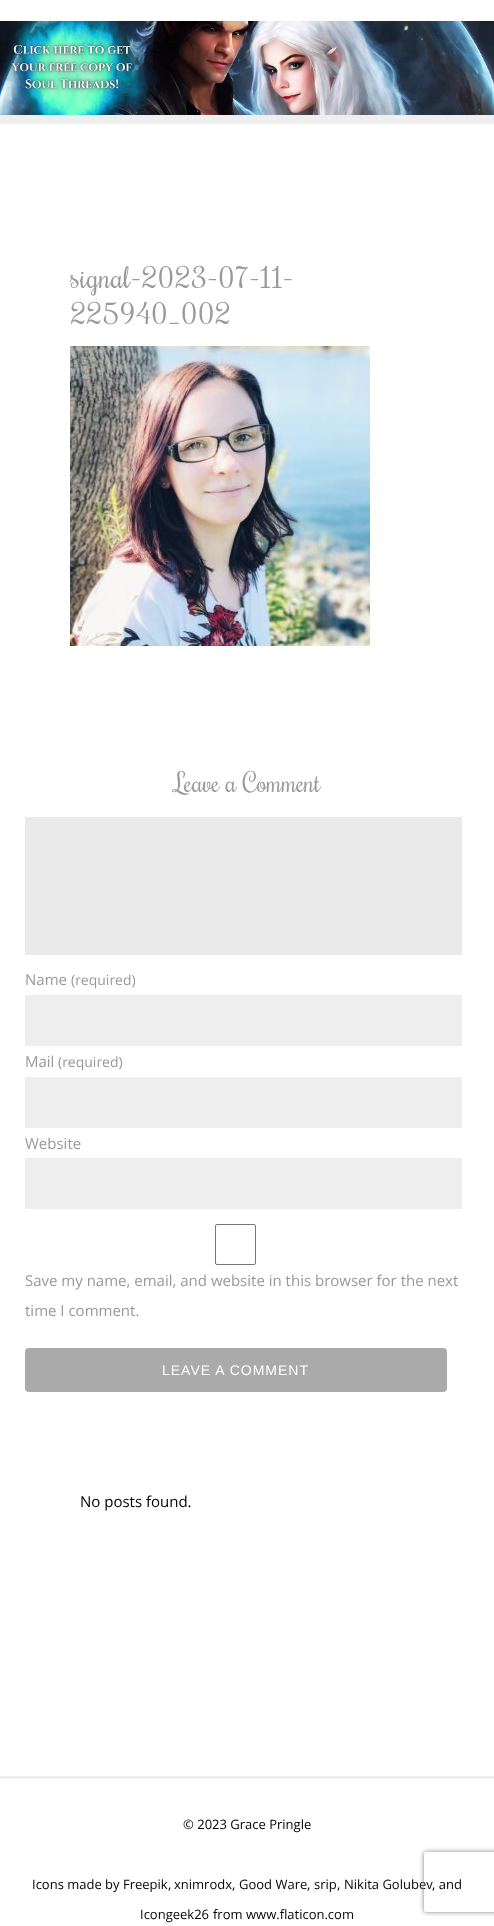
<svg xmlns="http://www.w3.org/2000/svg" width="494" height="1926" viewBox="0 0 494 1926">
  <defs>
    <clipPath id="clip1"><path d="M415 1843H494V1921H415ZM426 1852H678C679 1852 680 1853 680 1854V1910C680 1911 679 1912 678 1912H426C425 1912 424 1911 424 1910V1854C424 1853 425 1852 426 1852Z" clip-rule="evenodd"/></clipPath>
  </defs>
  <rect width="100%" height="100%" fill="rgb(239,239,239)"/>
  <rect x="0" y="0" width="494" height="21" fill="rgb(255,255,255)"/>
  <image x="0" y="21" width="494" height="94" href="pic1.png"/>
  <rect x="0" y="124" width="494" height="1802" fill="rgb(255,255,255)"/>
  <g font-family="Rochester" font-size="30" fill="rgb(153,153,153)">
    <text>
      <tspan x="70" y="288">signal-2023-07-11-</tspan>
      <tspan x="70" y="324">225940_002</tspan>
    </text>
  </g>
  <image x="70" y="346" width="300" height="300" href="pic2.png"/>
  <text x="174" y="792" font-family="Rochester" font-size="26" fill="rgb(153,153,153)">Leave a Comment</text>
  <rect x="25" y="817" width="437" height="138" fill="rgb(234,234,234)"/>
  <text x="25" y="985" font-family="Open Sans" font-size="15" fill="rgb(153,153,153)">Name</text>
  <text x="71" y="985" font-family="Open Sans" font-size="14" fill="rgb(153,153,153)">(required)</text>
  <rect x="25" y="995" width="437" height="51" fill="rgb(238,238,238)"/>
  <text x="25" y="1067" font-family="Open Sans" font-size="15" fill="rgb(153,153,153)">Mail</text>
  <text x="58" y="1067" font-family="Open Sans" font-size="14" fill="rgb(153,153,153)">(required)</text>
  <rect x="25" y="1077" width="437" height="51" fill="rgb(238,238,238)"/>
  <text x="25" y="1149" font-family="Open Sans" font-size="15" fill="rgb(153,153,153)">Website</text>
  <rect x="25" y="1158" width="437" height="51" fill="rgb(238,238,238)"/>
  <rect x="215.5" y="1224.5" width="40" height="40" rx="1.5" fill="none" stroke="rgb(118,118,118)"/>
  <g font-family="Open Sans" font-size="15" fill="rgb(153,153,153)">
    <text x="25" y="1286">Save my name, email, and website in this browser for the next</text>
    <text x="25" y="1316">time I comment.</text>
  </g>
  <rect x="25" y="1348" width="422" height="44" rx="4" fill="rgb(170,170,170)"/>
  <text x="162" y="1375" font-family="Liberation Sans" font-size="14" letter-spacing="1" fill="rgb(255,255,255)">LEAVE A COMMENT</text>
  <text x="80" y="1507" font-family="Open Sans" font-size="15" fill="rgb(0,0,0)">No posts found.</text>
  <rect x="0" y="1776" width="494" height="3" fill="rgb(238,238,238)"/>
  <g font-family="Open Sans" font-size="13" fill="rgb(0,0,0)">
    <text x="183" y="1829">© 2023 Grace Pringle</text>
    <text x="32" y="1889">Icons made by</text>
  </g>
  <text x="123" y="1889" font-family="Open Sans" font-size="13" fill="rgb(7,4,8)">Freepik</text>
  <text x="168" y="1889" font-family="Open Sans" font-size="13" fill="rgb(0,0,0)">,</text>
  <text x="174" y="1889" font-family="Open Sans" font-size="13" fill="rgb(7,4,8)">xnimrodx</text>
  <text x="232" y="1889" font-family="Open Sans" font-size="13" fill="rgb(0,0,0)">,</text>
  <text x="239" y="1889" font-family="Open Sans" font-size="13" fill="rgb(7,4,8)">Good Ware</text>
  <text x="307" y="1889" font-family="Open Sans" font-size="13" fill="rgb(0,0,0)">,</text>
  <text x="314" y="1889" font-family="Open Sans" font-size="13" fill="rgb(7,4,8)">srip</text>
  <text x="337" y="1889" font-family="Open Sans" font-size="13" fill="rgb(0,0,0)">,</text>
  <text x="344" y="1889" font-family="Open Sans" font-size="13" fill="rgb(7,4,8)">Nikita Golubev</text>
  <text x="432" y="1889" font-family="Open Sans" font-size="13" fill="rgb(0,0,0)">, and</text>
  <text x="140" y="1919" font-family="Open Sans" font-size="13" fill="rgb(7,4,8)">Icongeek26</text>
  <text x="213" y="1919" font-family="Open Sans" font-size="13" fill="rgb(0,0,0)">from</text>
  <text x="246" y="1919" font-family="Open Sans" font-size="13" fill="rgb(7,4,8)">www.flaticon.com</text>
  <g clip-path="url(#clip1)">
    <rect x="424" y="1852" width="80" height="60" rx="2" fill="rgb(128,128,128)" filter="blur(2.5px)"/>
  </g>
</svg>
